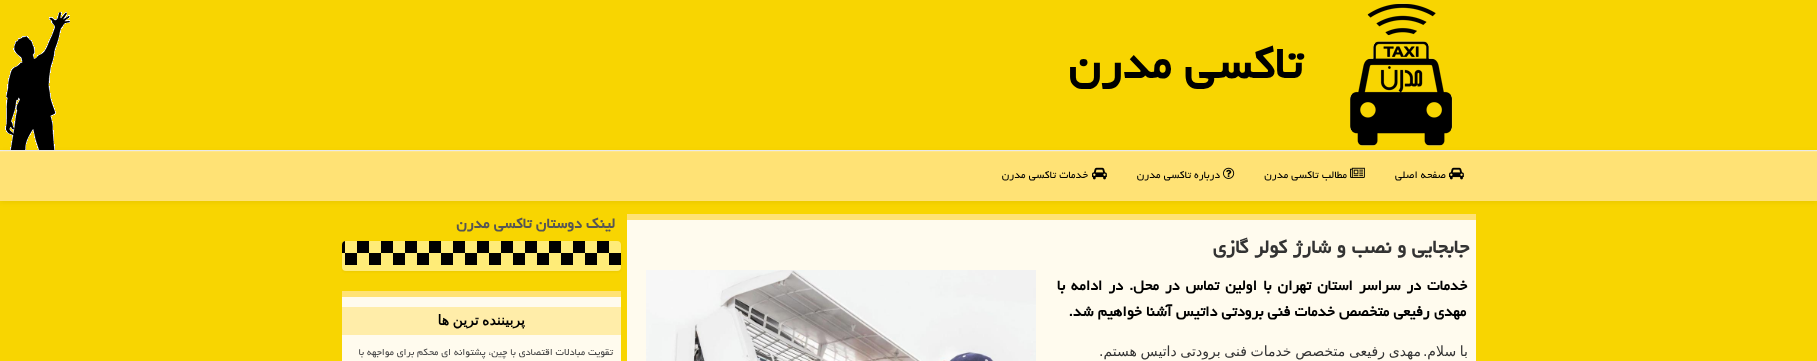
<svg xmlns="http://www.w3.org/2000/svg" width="1817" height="361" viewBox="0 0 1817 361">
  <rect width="100%" height="100%" fill="rgb(248,213,1)"/>
  <image x="5" y="12" width="65" height="138" href="pic1.png"/>
  <rect x="0" y="150" width="1817" height="1" fill="rgb(238,238,238)"/>
  <image x="1350" y="3" width="103" height="143" href="pic2.png"/>
  <text x="1302" y="78" font-family="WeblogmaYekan" font-size="56" font-weight="bold" direction="rtl" fill="rgb(0,0,0)">تاكسی مدرن</text>
  <rect x="0" y="152" width="1817" height="50" fill="rgba(0,0,0,0.07)" filter="blur(2.5px)"/>
  <rect x="0" y="152" width="1817" height="49" fill="rgb(255,226,117)"/>
  <rect x="0" y="151" width="1817" height="1" fill="rgb(255,230,138)"/>
  <image x="1449" y="167" width="15" height="13" href="pic3.png"/>
  <text x="1446" y="178" font-family="WeblogmaYekan" font-size="13" direction="rtl" fill="rgb(0,0,0)">صفحه اصلی</text>
  <image x="1350" y="167" width="15" height="11" href="pic4.png"/>
  <text x="1347" y="178" font-family="WeblogmaYekan" font-size="13" direction="rtl" fill="rgb(0,0,0)">مطالب تاكسی مدرن</text>
  <image x="1223" y="167" width="12" height="12" href="pic5.png"/>
  <text x="1220" y="178" font-family="WeblogmaYekan" font-size="13" direction="rtl" fill="rgb(0,0,0)">درباره تاكسی مدرن</text>
  <image x="1092" y="167" width="15" height="13" href="pic3.png"/>
  <text x="1088" y="178" font-family="WeblogmaYekan" font-size="13" direction="rtl" fill="rgb(0,0,0)">خدمات تاكسی مدرن</text>
  <rect x="627" y="220" width="849" height="141" fill="rgb(255,251,238)"/>
  <rect x="627" y="214" width="849" height="6" fill="rgb(255,226,117)"/>
  <text x="1469" y="253" font-family="WeblogmaYekan" font-size="23.75" font-weight="bold" direction="rtl" fill="rgb(51,51,51)">جابجایی و نصب و شارژ كولر گازی</text>
  <g font-family="WeblogmaYekan" font-size="18" font-weight="bold" direction="rtl" fill="rgb(0,0,0)">
    <text x="1467" y="290" word-spacing="1.75">خدمات در سراسر استان تهران با اولین تماس در محل. در ادامه با</text>
    <text x="1466" y="316">مهدی رفیعی متخصص خدمات فنی برودتی داتیس آشنا خواهیم شد.</text>
  </g>
  <image x="646" y="270" width="390" height="91" href="pic6.png"/>
  <g font-family="DejaVu Sans" font-size="14" direction="rtl" fill="rgb(51,51,51)">
    <text x="1468" y="356" word-spacing="-0.75">با سلام.</text>
    <text x="1421" y="356" word-spacing="-0.75">مهدی رفیعی متخصص خدمات فنی برودتی داتیس هستم.</text>
  </g>
  <text x="615" y="228" font-family="WeblogmaYekan" font-size="18" font-weight="bold" direction="rtl" fill="rgb(85,85,85)">لینک دوستان تاكسی مدرن</text>
  <rect x="342" y="242" width="279" height="30" rx="4" fill="rgba(0,0,0,0.05)" filter="blur(1px)"/>
  <rect x="342" y="241" width="279" height="30" rx="4" fill="rgb(255,236,120)"/>
  <image x="342" y="241" width="279" height="24" href="pic7.png"/>
  <rect x="342" y="297" width="279" height="64" fill="rgb(255,251,238)"/>
  <rect x="342" y="291" width="279" height="6" fill="rgb(255,226,117)"/>
  <rect x="342" y="307" width="279" height="28" fill="rgb(255,237,169)"/>
  <text x="525" y="325" word-spacing="-1" font-family="DejaVu Sans" font-size="14" font-weight="bold" direction="rtl" fill="rgb(0,0,0)">پربیننده ترین ها</text>
  <text x="613" y="355" font-family="WeblogmaYekan" font-size="12" direction="rtl" fill="rgb(74,74,74)">تقویت مبادلات اقتصادی با چین، پشتوانه ای محکم برای مواجهه با</text>
</svg>
